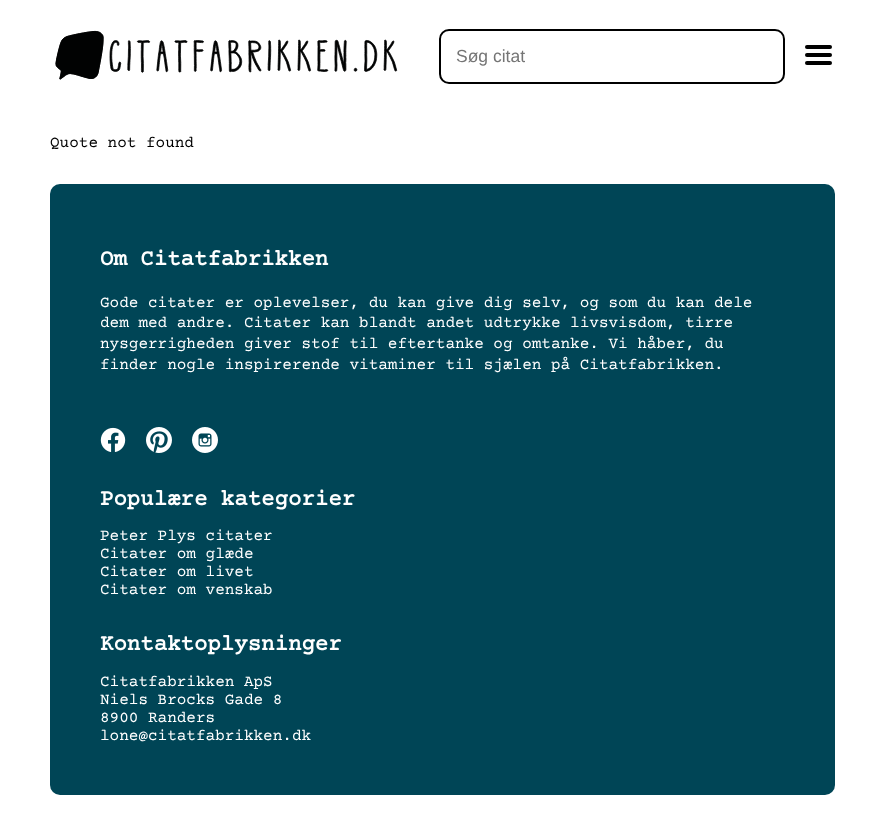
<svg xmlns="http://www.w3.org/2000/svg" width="885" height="821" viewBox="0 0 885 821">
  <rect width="100%" height="100%" fill="rgb(255,255,255)"/>
  <image x="55" y="30" width="343" height="50" href="pic1.png"/>
  <rect x="440" y="30" width="344" height="53" rx="9" fill="none" stroke="rgb(0,0,0)" stroke-width="2"/>
  <text x="456" y="62" font-family="Liberation Sans" font-size="17.5" fill="rgb(117,117,117)">Søg citat</text>
  <rect x="805" y="45" width="27" height="4" rx="2" fill="rgb(0,0,0)"/>
  <rect x="805" y="53" width="27" height="4" rx="2" fill="rgb(0,0,0)"/>
  <rect x="805" y="61" width="27" height="4" rx="2" fill="rgb(0,0,0)"/>
  <text x="50" y="147" font-family="Courier Prime" font-size="16" fill="rgb(0,0,0)">Quote not found</text>
  <rect x="50" y="184" width="785" height="611" rx="10" fill="rgb(0,69,86)"/>
  <text x="100" y="265" font-family="Courier Prime" font-size="22.4" font-weight="bold" fill="rgb(255,255,255)">Om Citatfabrikken</text>
  <g font-family="Courier Prime" font-size="16" fill="rgb(255,255,255)">
    <text>
      <tspan x="100" y="307">Gode citater er oplevelser, du kan give dig selv, og som du kan dele</tspan>
      <tspan x="100" y="327">dem med andre. Citater kan blandt andet udtrykke livsvisdom, tirre</tspan>
      <tspan x="100" y="348">nysgerrigheden giver stof til eftertanke og omtanke. Vi håber, du</tspan>
      <tspan x="100" y="369">finder nogle inspirerende vitaminer til sjælen på Citatfabrikken.</tspan>
    </text>
  </g>
  <image x="100" y="427" width="26" height="25" href="pic2.png"/>
  <image x="146" y="427" width="26" height="26" href="pic3.png"/>
  <image x="192" y="427" width="26" height="26" href="pic4.png"/>
  <text x="100" y="505" font-family="Courier Prime" font-size="22.4" font-weight="bold" fill="rgb(255,255,255)">Populære kategorier</text>
  <g font-family="Courier Prime" font-size="16" fill="rgb(255,255,255)">
    <text>
      <tspan x="100" y="540">Peter Plys citater</tspan>
      <tspan x="100" y="558">Citater om glæde</tspan>
      <tspan x="100" y="576">Citater om livet</tspan>
      <tspan x="100" y="594">Citater om venskab</tspan>
    </text>
  </g>
  <text x="100" y="650" font-family="Courier Prime" font-size="22.4" font-weight="bold" fill="rgb(255,255,255)">Kontaktoplysninger</text>
  <g font-family="Courier Prime" font-size="16" fill="rgb(255,255,255)">
    <text>
      <tspan x="100" y="686">Citatfabrikken ApS</tspan>
      <tspan x="100" y="704">Niels Brocks Gade 8</tspan>
      <tspan x="100" y="722">8900 Randers</tspan>
      <tspan x="100" y="740">lone@citatfabrikken.dk</tspan>
    </text>
  </g>
</svg>
